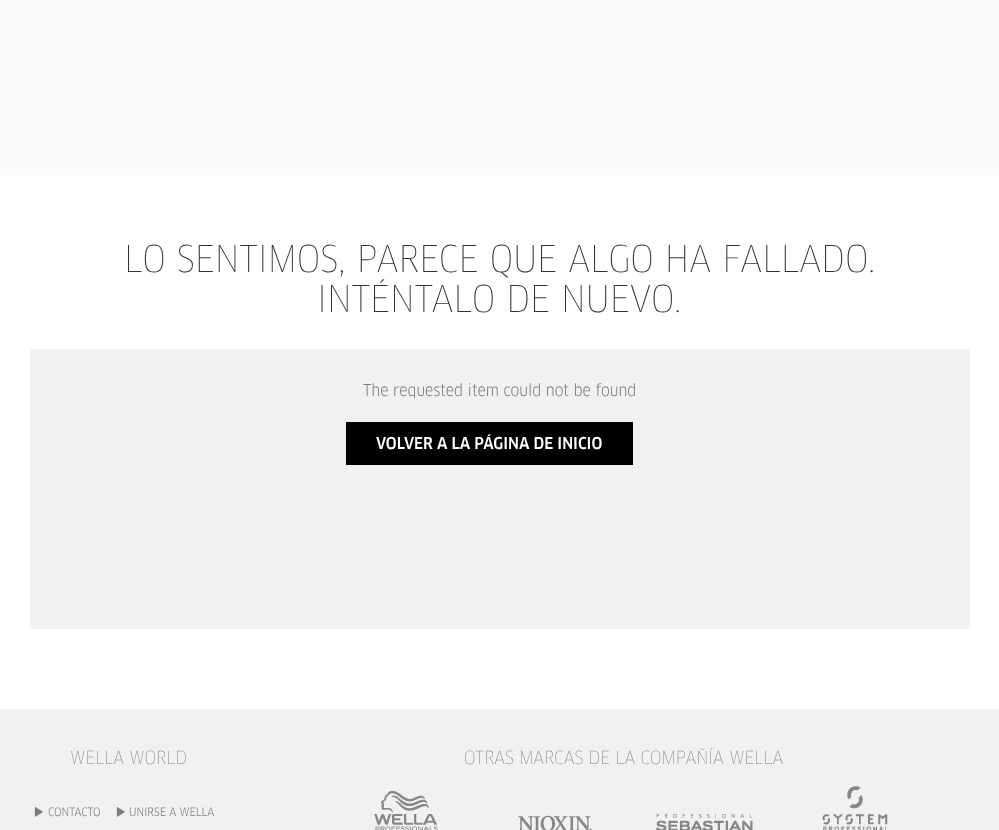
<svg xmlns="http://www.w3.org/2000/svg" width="999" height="830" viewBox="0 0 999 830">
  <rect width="100%" height="100%" fill="rgb(255,255,255)"/>
  <rect x="0" y="0" width="999" height="175" fill="rgb(251,249,250)"/>
  <g font-family="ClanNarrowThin" font-size="36" font-weight="200" fill="rgb(51,51,51)">
    <text x="124" y="272">LO SENTIMOS, PARECE QUE ALGO HA FALLADO.</text>
    <text x="317" y="312">INTÉNTALO DE NUEVO.</text>
  </g>
  <rect x="30" y="349" width="940" height="280" fill="rgb(241,241,241)"/>
  <text x="363" y="396" font-family="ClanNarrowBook" font-size="16" fill="rgb(121,125,127)">The requested item could not be found</text>
  <rect x="346" y="422" width="287" height="43" fill="rgb(0,0,0)"/>
  <text x="376" y="449" font-family="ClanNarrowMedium" font-size="16" font-weight="500" fill="rgb(255,255,255)">VOLVER A LA PÁGINA DE INICIO</text>
  <rect x="0" y="709" width="999" height="121" fill="rgb(241,241,241)"/>
  <text x="70" y="764" font-family="ClanNarrowThin" font-size="17.6" font-weight="200" fill="rgb(121,125,127)">WELLA WORLD</text>
  <image x="34" y="807" width="9" height="10" href="pic1.png"/>
  <text x="48" y="816" font-family="ClanNarrowBook" font-size="11.25" fill="rgb(121,125,127)">CONTACTO</text>
  <image x="116" y="807" width="9" height="10" href="pic1.png"/>
  <text x="129" y="816" font-family="ClanNarrowBook" font-size="11.25" fill="rgb(121,125,127)">UNIRSE A WELLA</text>
  <text x="464" y="764" font-family="ClanNarrowThin" font-size="17.6" font-weight="200" fill="rgb(121,125,127)">OTRAS MARCAS DE LA COMPAÑÍA WELLA</text>
  <image x="374" y="791" width="64" height="39" href="pic2.png"/>
  <image x="518" y="815" width="74" height="15" href="pic3.png"/>
  <image x="656" y="814" width="97" height="16" href="pic4.png"/>
  <image x="822" y="786" width="66" height="44" href="pic5.png"/>
</svg>
